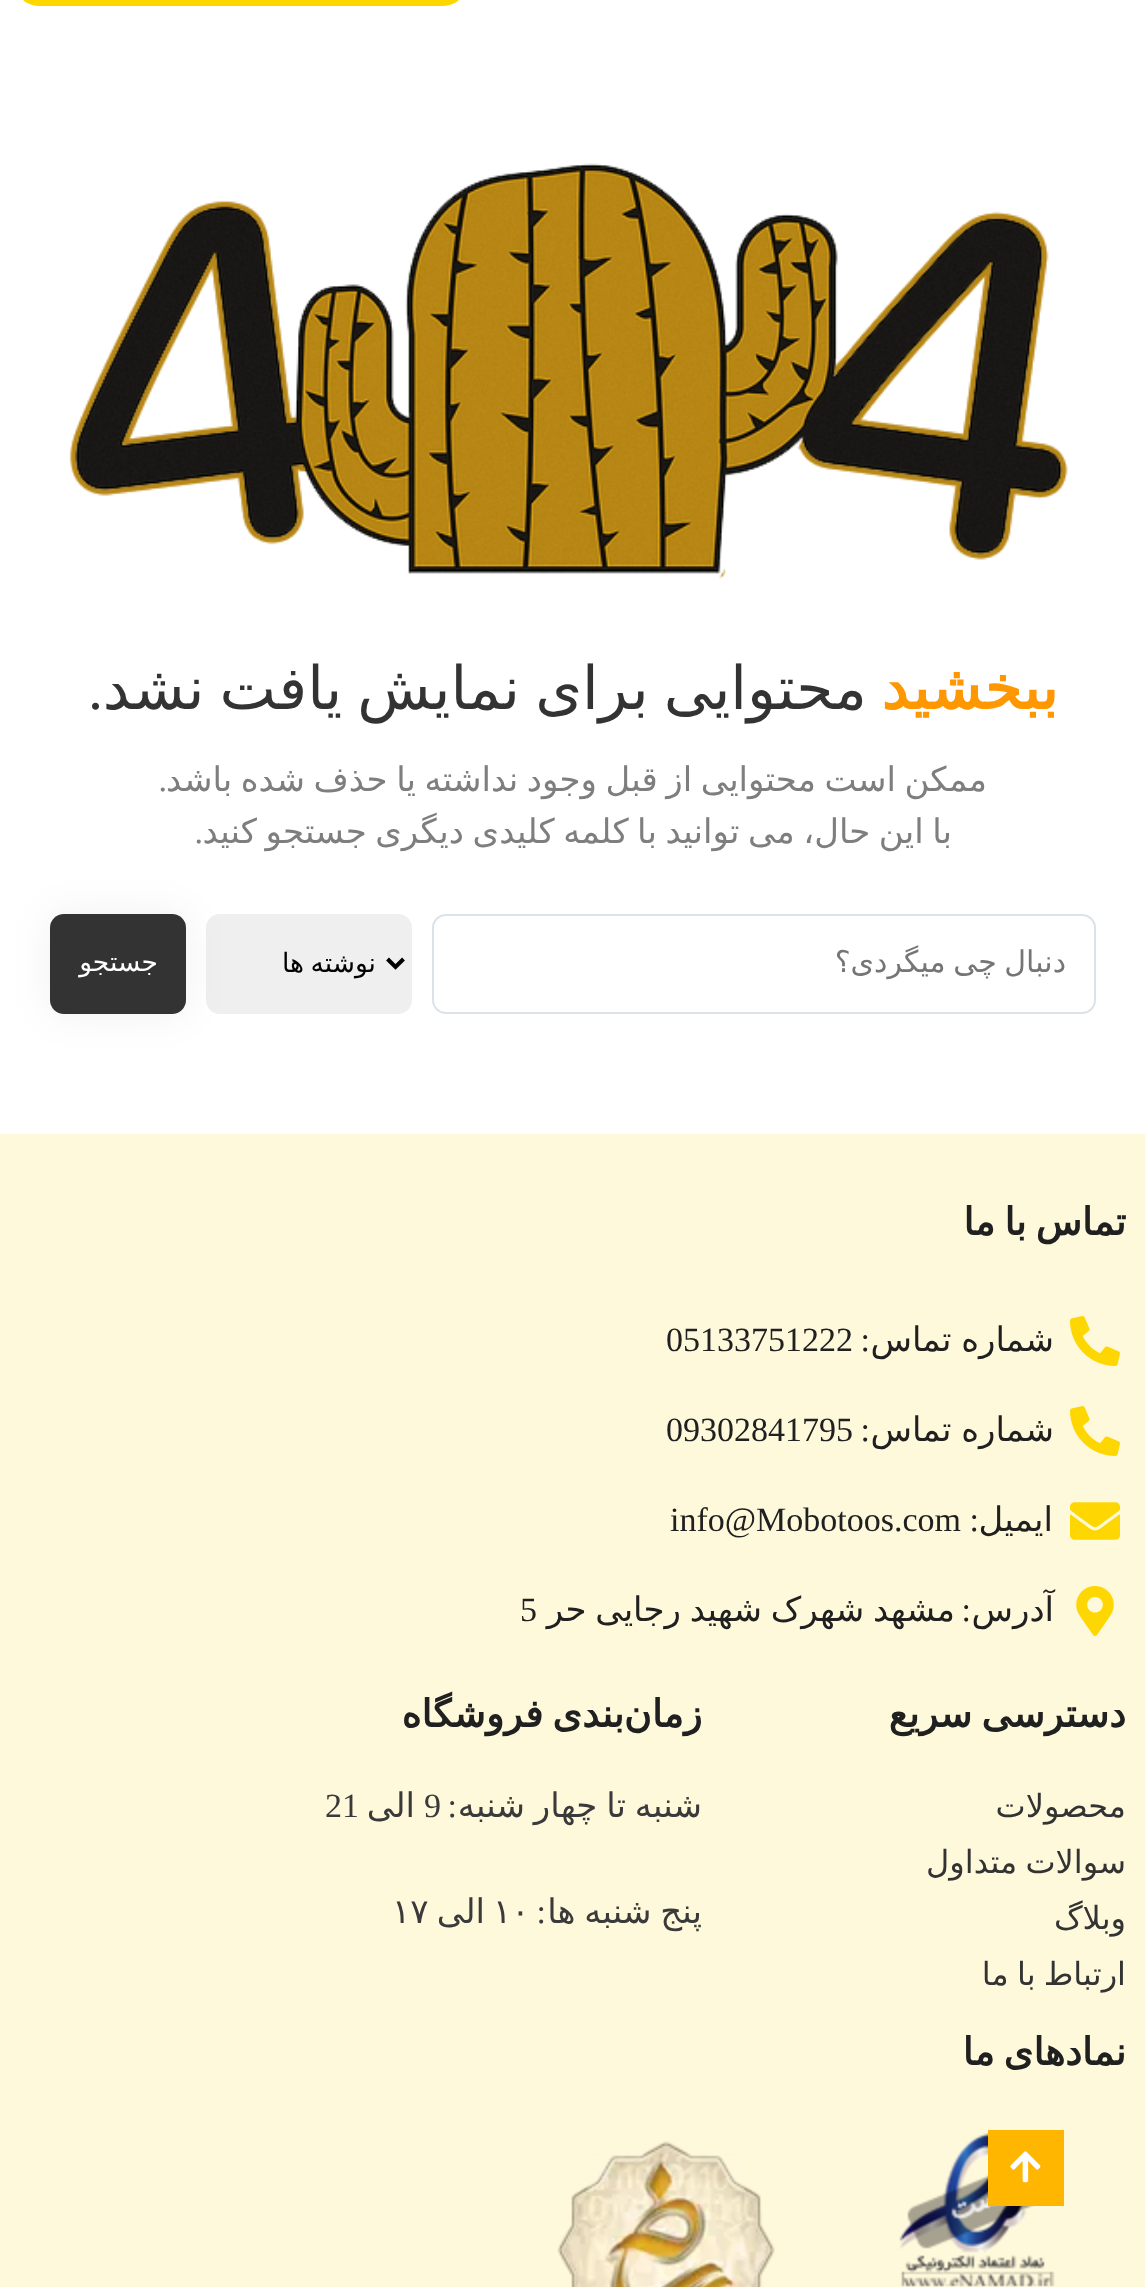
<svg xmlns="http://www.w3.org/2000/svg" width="1145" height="2287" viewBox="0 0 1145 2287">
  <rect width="100%" height="100%" fill="rgb(255,255,255)"/>
  <rect x="20" y="-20" width="442" height="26" rx="20" fill="rgb(254,215,0)"/>
  <image x="69" y="163" width="999" height="416" href="pic1.png"/>
  <text x="1058" y="709" font-family="DejaVu Sans" font-size="60" font-weight="bold" direction="rtl" fill="rgb(255,152,0)">ببخشید</text>
  <text x="867" y="709" word-spacing="-4" font-family="DejaVu Sans" font-size="60" direction="rtl" fill="rgb(51,51,51)">محتوایی برای نمایش یافت نشد</text>
  <text x="103" y="709" font-family="Liberation Serif" font-size="60" direction="rtl" fill="rgb(51,51,51)">.</text>
  <text x="987" y="791" word-spacing="-2.25" font-family="DejaVu Sans" font-size="34" direction="rtl" fill="rgb(126,126,126)">ممکن است محتوایی از قبل وجود نداشته یا حذف شده باشد</text>
  <text x="167" y="791" font-family="Liberation Serif" font-size="34" direction="rtl" fill="rgb(126,126,126)">.</text>
  <text x="952" y="843" word-spacing="-2.25" font-family="DejaVu Sans" font-size="34" direction="rtl" fill="rgb(126,126,126)">با این حال، می توانید با کلمه کلیدی دیگری جستجو کنید</text>
  <text x="203" y="843" font-family="Liberation Serif" font-size="34" direction="rtl" fill="rgb(126,126,126)">.</text>
  <rect x="433" y="915" width="662" height="98" rx="13" fill="none" stroke="rgb(219,226,232)" stroke-width="2"/>
  <text x="1066" y="972" word-spacing="-2" font-family="DejaVu Sans" font-size="30" direction="rtl" fill="rgb(117,117,117)">دنبال چی میگردی؟</text>
  <rect x="206" y="914" width="206" height="100" rx="14" fill="rgb(239,239,239)"/>
  <path d="M387.5 959L395.5 967L403.5 959" fill="none" stroke="rgb(0,0,0)" stroke-width="4"/>
  <text x="376" y="972" word-spacing="-2" font-family="DejaVu Sans" font-size="26.5" direction="rtl" fill="rgb(0,0,0)">نوشته ها</text>
  <rect x="50" y="914" width="136" height="100" rx="14" fill="rgba(0,0,0,0.06)" filter="blur(20px)"/>
  <rect x="50" y="914" width="136" height="100" rx="14" fill="rgb(51,51,51)"/>
  <text x="158" y="971" font-family="DejaVu Sans" font-size="26.5" direction="rtl" fill="rgb(255,255,255)">جستجو</text>
  <rect x="0" y="1134" width="1145" height="1153" fill="rgb(255,249,220)"/>
  <text x="1126" y="1235" word-spacing="-3" font-family="DejaVu Sans" font-size="38" font-weight="bold" direction="rtl" fill="rgb(32,32,32)">تماس با ما</text>
  <image x="1070" y="1316" width="50" height="50" href="pic2.png"/>
  <text x="1054" y="1351" word-spacing="-1" font-family="DejaVu Sans" font-size="34" direction="rtl" fill="rgb(32,32,32)">شماره تماس</text>
  <text x="870" y="1351" font-family="Liberation Serif" font-size="34" direction="rtl" fill="rgb(32,32,32)">:</text>
  <text x="666" y="1351" font-family="Liberation Serif" font-size="34" fill="rgb(32,32,32)">05133751222</text>
  <image x="1070" y="1406" width="50" height="50" href="pic2.png"/>
  <text x="1054" y="1441" word-spacing="-1" font-family="DejaVu Sans" font-size="34" direction="rtl" fill="rgb(32,32,32)">شماره تماس</text>
  <text x="870" y="1441" font-family="Liberation Serif" font-size="34" direction="rtl" fill="rgb(32,32,32)">:</text>
  <text x="666" y="1441" font-family="Liberation Serif" font-size="34" fill="rgb(32,32,32)">09302841795</text>
  <image x="1070" y="1502" width="50" height="38" href="pic3.png"/>
  <text x="1053" y="1531" font-family="DejaVu Sans" font-size="34" direction="rtl" fill="rgb(32,32,32)">ایمیل</text>
  <text x="979" y="1531" font-family="Liberation Serif" font-size="34" direction="rtl" fill="rgb(32,32,32)">:</text>
  <text x="670" y="1531" font-family="Liberation Serif" font-size="34" fill="rgb(32,32,32)">info@Mobotoos.com</text>
  <image x="1076" y="1586" width="38" height="50" href="pic4.png"/>
  <text x="1054" y="1621" font-family="DejaVu Sans" font-size="34" direction="rtl" fill="rgb(32,32,32)">آدرس</text>
  <text x="971" y="1621" font-family="Liberation Serif" font-size="34" direction="rtl" fill="rgb(32,32,32)">:</text>
  <text x="955" y="1621" word-spacing="-2" font-family="DejaVu Sans" font-size="34" direction="rtl" fill="rgb(32,32,32)">مشهد شهرک شهید رجایی حر</text>
  <text x="520" y="1621" font-family="Liberation Serif" font-size="34" fill="rgb(32,32,32)">5</text>
  <text x="1126" y="1727" word-spacing="-3" font-family="DejaVu Sans" font-size="38" font-weight="bold" direction="rtl" fill="rgb(32,32,32)">دسترسی سریع</text>
  <g font-family="DejaVu Sans" font-size="32" direction="rtl" fill="rgb(51,51,51)">
    <text>
      <tspan x="1126" y="1817">محصولات</tspan>
      <tspan x="1126" y="1873" word-spacing="-2">سوالات متداول</tspan>
      <tspan x="1126" y="1929">وبلاگ</tspan>
      <tspan x="1126" y="1985" word-spacing="-2">ارتباط با ما</tspan>
    </text>
  </g>
  <g font-family="DejaVu Sans" font-size="38" font-weight="bold" direction="rtl" fill="rgb(32,32,32)">
    <text x="702" y="1727">زمان</text>
    <text x="624" y="1727" word-spacing="-3">بندی فروشگاه</text>
  </g>
  <text x="702" y="1817" word-spacing="-2" font-family="DejaVu Sans" font-size="34" direction="rtl" fill="rgb(58,58,58)">شنبه تا چهار شنبه</text>
  <text x="457" y="1817" font-family="Liberation Serif" font-size="34" direction="rtl" fill="rgb(58,58,58)">:</text>
  <text x="424" y="1817" font-family="Liberation Serif" font-size="34" fill="rgb(58,58,58)">9</text>
  <text x="415" y="1817" font-family="DejaVu Sans" font-size="34" direction="rtl" fill="rgb(58,58,58)">الی</text>
  <text x="325" y="1817" font-family="Liberation Serif" font-size="34" fill="rgb(58,58,58)">21</text>
  <text x="702" y="1923" word-spacing="-2" font-family="DejaVu Sans" font-size="34" direction="rtl" fill="rgb(58,58,58)">پنج شنبه ها</text>
  <text x="546" y="1923" font-family="Liberation Serif" font-size="34" direction="rtl" fill="rgb(58,58,58)">:</text>
  <text x="493" y="1923" font-family="DejaVu Sans" font-size="34" fill="rgb(58,58,58)">۱۰</text>
  <text x="485" y="1923" font-family="DejaVu Sans" font-size="34" direction="rtl" fill="rgb(58,58,58)">الی</text>
  <text x="392" y="1923" font-family="DejaVu Sans" font-size="34" fill="rgb(58,58,58)">۱۷</text>
  <text x="1126" y="2065" word-spacing="-3" font-family="DejaVu Sans" font-size="38" font-weight="bold" direction="rtl" fill="rgb(32,32,32)">نمادهای ما</text>
  <image x="899" y="2133" width="156" height="154" href="pic5.png"/>
  <image x="557" y="2141" width="218" height="146" href="pic6.png"/>
  <rect x="988" y="2130" width="76" height="76" fill="rgb(255,182,0)"/>
  <image x="1010" y="2151" width="31" height="32" href="pic7.png"/>
</svg>
